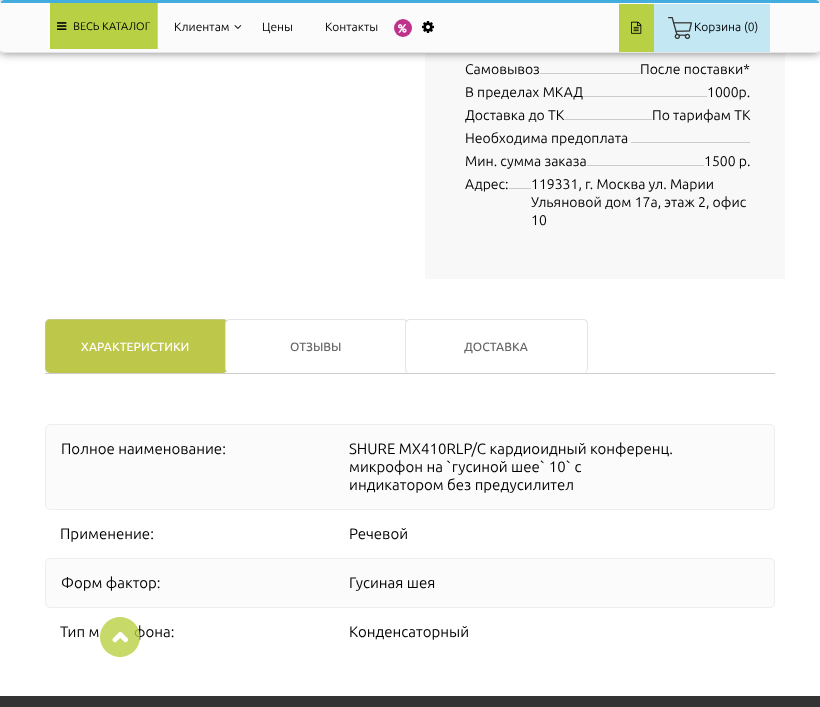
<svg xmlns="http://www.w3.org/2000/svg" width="820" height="707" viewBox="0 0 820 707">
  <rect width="100%" height="100%" fill="rgb(255,255,255)"/>
  <rect x="425" y="53" width="360" height="226" fill="rgb(248,248,248)"/>
  <rect x="0" y="0" width="820" height="53" rx="4" fill="rgba(0,0,0,0.5)" filter="blur(5px)"/>
  <rect x="0" y="0" width="820" height="53" rx="4" fill="rgb(251,251,251)"/>
  <path d="M4 0C3 0 1 1 1 2V3H4H816H819V2C819 1 817 0 816 0Z" fill="rgb(68,173,223)"/>
  <path d="M4 53H816L819 52L818 51L816 52H4L2 51L1 52Z" fill="rgb(229,229,229)"/>
  <rect x="157" y="3" width="1" height="46" fill="rgb(204,204,204)"/>
  <rect x="50" y="3" width="107" height="46" fill="rgb(184,208,68)"/>
  <image x="57" y="22" width="10" height="8" href="pic1.png"/>
  <text x="73" y="30" font-family="Ubuntu" font-size="11" fill="rgb(0,0,0)">ВЕСЬ КАТАЛОГ</text>
  <text x="174" y="31" font-family="Ubuntu" font-size="12" fill="rgb(0,0,0)">Клиентам</text>
  <image x="234" y="25" width="8" height="4" href="pic2.png"/>
  <g font-family="Ubuntu" font-size="12" fill="rgb(0,0,0)">
    <text x="262" y="31">Цены</text>
    <text x="325" y="31">Контакты</text>
  </g>
  <circle cx="403" cy="28" r="9" fill="rgb(190,50,138)"/>
  <image x="398" y="24" width="9" height="9" href="pic3.png"/>
  <image x="422" y="21" width="12" height="12" href="pic4.png"/>
  <rect x="619" y="4" width="35" height="48" fill="rgb(184,208,68)"/>
  <image x="631" y="21" width="11" height="13" href="pic5.png"/>
  <rect x="654" y="4" width="116" height="48" fill="rgb(195,231,243)"/>
  <image x="668" y="17" width="24" height="22" href="pic6.png"/>
  <text x="694" y="31" font-family="Ubuntu" font-size="12" fill="rgb(0,0,0)">Корзина (0)</text>
  <text x="465" y="74" font-family="Ubuntu" font-size="14" fill="rgb(0,0,0)">Самовывоз</text>
  <rect x="540" y="73" width="100" height="1" fill="rgb(204,204,204)"/>
  <g font-family="Ubuntu" font-size="14" fill="rgb(0,0,0)">
    <text x="640" y="74">После поставки*</text>
    <text x="465" y="97">В пределах МКАД</text>
  </g>
  <rect x="583" y="96" width="124" height="1" fill="rgb(204,204,204)"/>
  <g font-family="Ubuntu" font-size="14" fill="rgb(0,0,0)">
    <text x="707" y="97">1000р.</text>
    <text x="465" y="120">Доставка до ТК</text>
  </g>
  <rect x="564" y="119" width="88" height="1" fill="rgb(204,204,204)"/>
  <g font-family="Ubuntu" font-size="14" fill="rgb(0,0,0)">
    <text x="652" y="120">По тарифам ТК</text>
    <text x="465" y="143">Необходима предоплата</text>
  </g>
  <rect x="631" y="142" width="119" height="1" fill="rgb(204,204,204)"/>
  <text x="465" y="166" font-family="Ubuntu" font-size="14" fill="rgb(0,0,0)">Мин. сумма заказа</text>
  <rect x="587" y="165" width="117" height="1" fill="rgb(204,204,204)"/>
  <g font-family="Ubuntu" font-size="14" fill="rgb(0,0,0)">
    <text x="704" y="166">1500 р.</text>
    <text x="465" y="189">Адрес:</text>
  </g>
  <rect x="509" y="188" width="22" height="1" fill="rgb(204,204,204)"/>
  <g font-family="Ubuntu" font-size="14" fill="rgb(0,0,0)">
    <text>
      <tspan x="531" y="189">119331, г. Москва ул. Марии</tspan>
      <tspan x="531" y="207">Ульяновой дом 17а, этаж 2, офис</tspan>
      <tspan x="531" y="225">10</tspan>
    </text>
  </g>
  <rect x="45" y="373" width="730" height="1" fill="rgb(204,204,204)"/>
  <rect x="45" y="319" width="183" height="54" rx="5" fill="rgb(189,199,74)"/>
  <path d="M50 319H223C226 319 228 321 228 324V368C228 371 226 373 223 373H50C47 373 45 371 45 368V324C45 321 47 319 50 319ZM50 320H223C225 320 227 322 227 324V368C227 371 225 373 223 373H50C48 373 46 371 46 368V324C46 322 48 320 50 320Z" fill="rgba(204,204,204,0.5)" fill-rule="evenodd"/>
  <text x="81" y="351" font-family="Ubuntu" font-size="12" font-weight="500" fill="rgb(255,255,255)">ХАРАКТЕРИСТИКИ</text>
  <rect x="225" y="319" width="183" height="54" rx="5" fill="rgb(255,255,255)"/>
  <path d="M230 319H403C406 319 408 321 408 324V368C408 371 406 373 403 373H230C227 373 225 371 225 368V324C225 321 227 319 230 319ZM230 320H403C405 320 407 322 407 324V368C407 371 405 373 403 373H230C228 373 226 371 226 368V324C226 322 228 320 230 320Z" fill="rgba(204,204,204,0.5)" fill-rule="evenodd"/>
  <text x="290" y="351" font-family="Ubuntu" font-size="12" font-weight="500" fill="rgb(102,102,102)">ОТЗЫВЫ</text>
  <rect x="405" y="319" width="183" height="54" rx="5" fill="rgb(255,255,255)"/>
  <path d="M410 319H583C586 319 588 321 588 324V368C588 371 586 373 583 373H410C407 373 405 371 405 368V324C405 321 407 319 410 319ZM410 320H583C585 320 587 322 587 324V368C587 371 585 373 583 373H410C408 373 406 371 406 368V324C406 322 408 320 410 320Z" fill="rgba(204,204,204,0.5)" fill-rule="evenodd"/>
  <text x="464" y="351" font-family="Ubuntu" font-size="12" font-weight="500" fill="rgb(102,102,102)">ДОСТАВКА</text>
  <rect x="45.5" y="424.5" width="729" height="85" rx="4.5" fill="rgb(251,251,251)" stroke="rgb(238,238,238)"/>
  <g font-family="Ubuntu" font-size="15" fill="rgb(0,0,0)">
    <text x="61" y="454">Полное наименование:</text>
    <text>
      <tspan x="349" y="454">SHURE MX410RLP/C кардиоидный конференц.</tspan>
      <tspan x="349" y="472">микрофон на `гусиной шее` 10` с</tspan>
      <tspan x="349" y="490">индикатором без предусилител</tspan>
    </text>
    <text x="60" y="539">Применение:</text>
    <text x="349" y="539">Речевой</text>
  </g>
  <rect x="45.5" y="558.5" width="729" height="49" rx="4.5" fill="rgb(251,251,251)" stroke="rgb(238,238,238)"/>
  <g font-family="Ubuntu" font-size="15" fill="rgb(0,0,0)">
    <text x="61" y="588">Форм фактор:</text>
    <text x="349" y="588">Гусиная шея</text>
    <text x="60" y="637">Тип м</text>
    <text x="134" y="637">фона:</text>
    <text x="349" y="637">Конденсаторный</text>
  </g>
  <image x="100" y="617" width="40" height="40" href="pic7.png"/>
  <rect x="0" y="696" width="820" height="11" fill="rgb(51,51,51)"/>
</svg>
